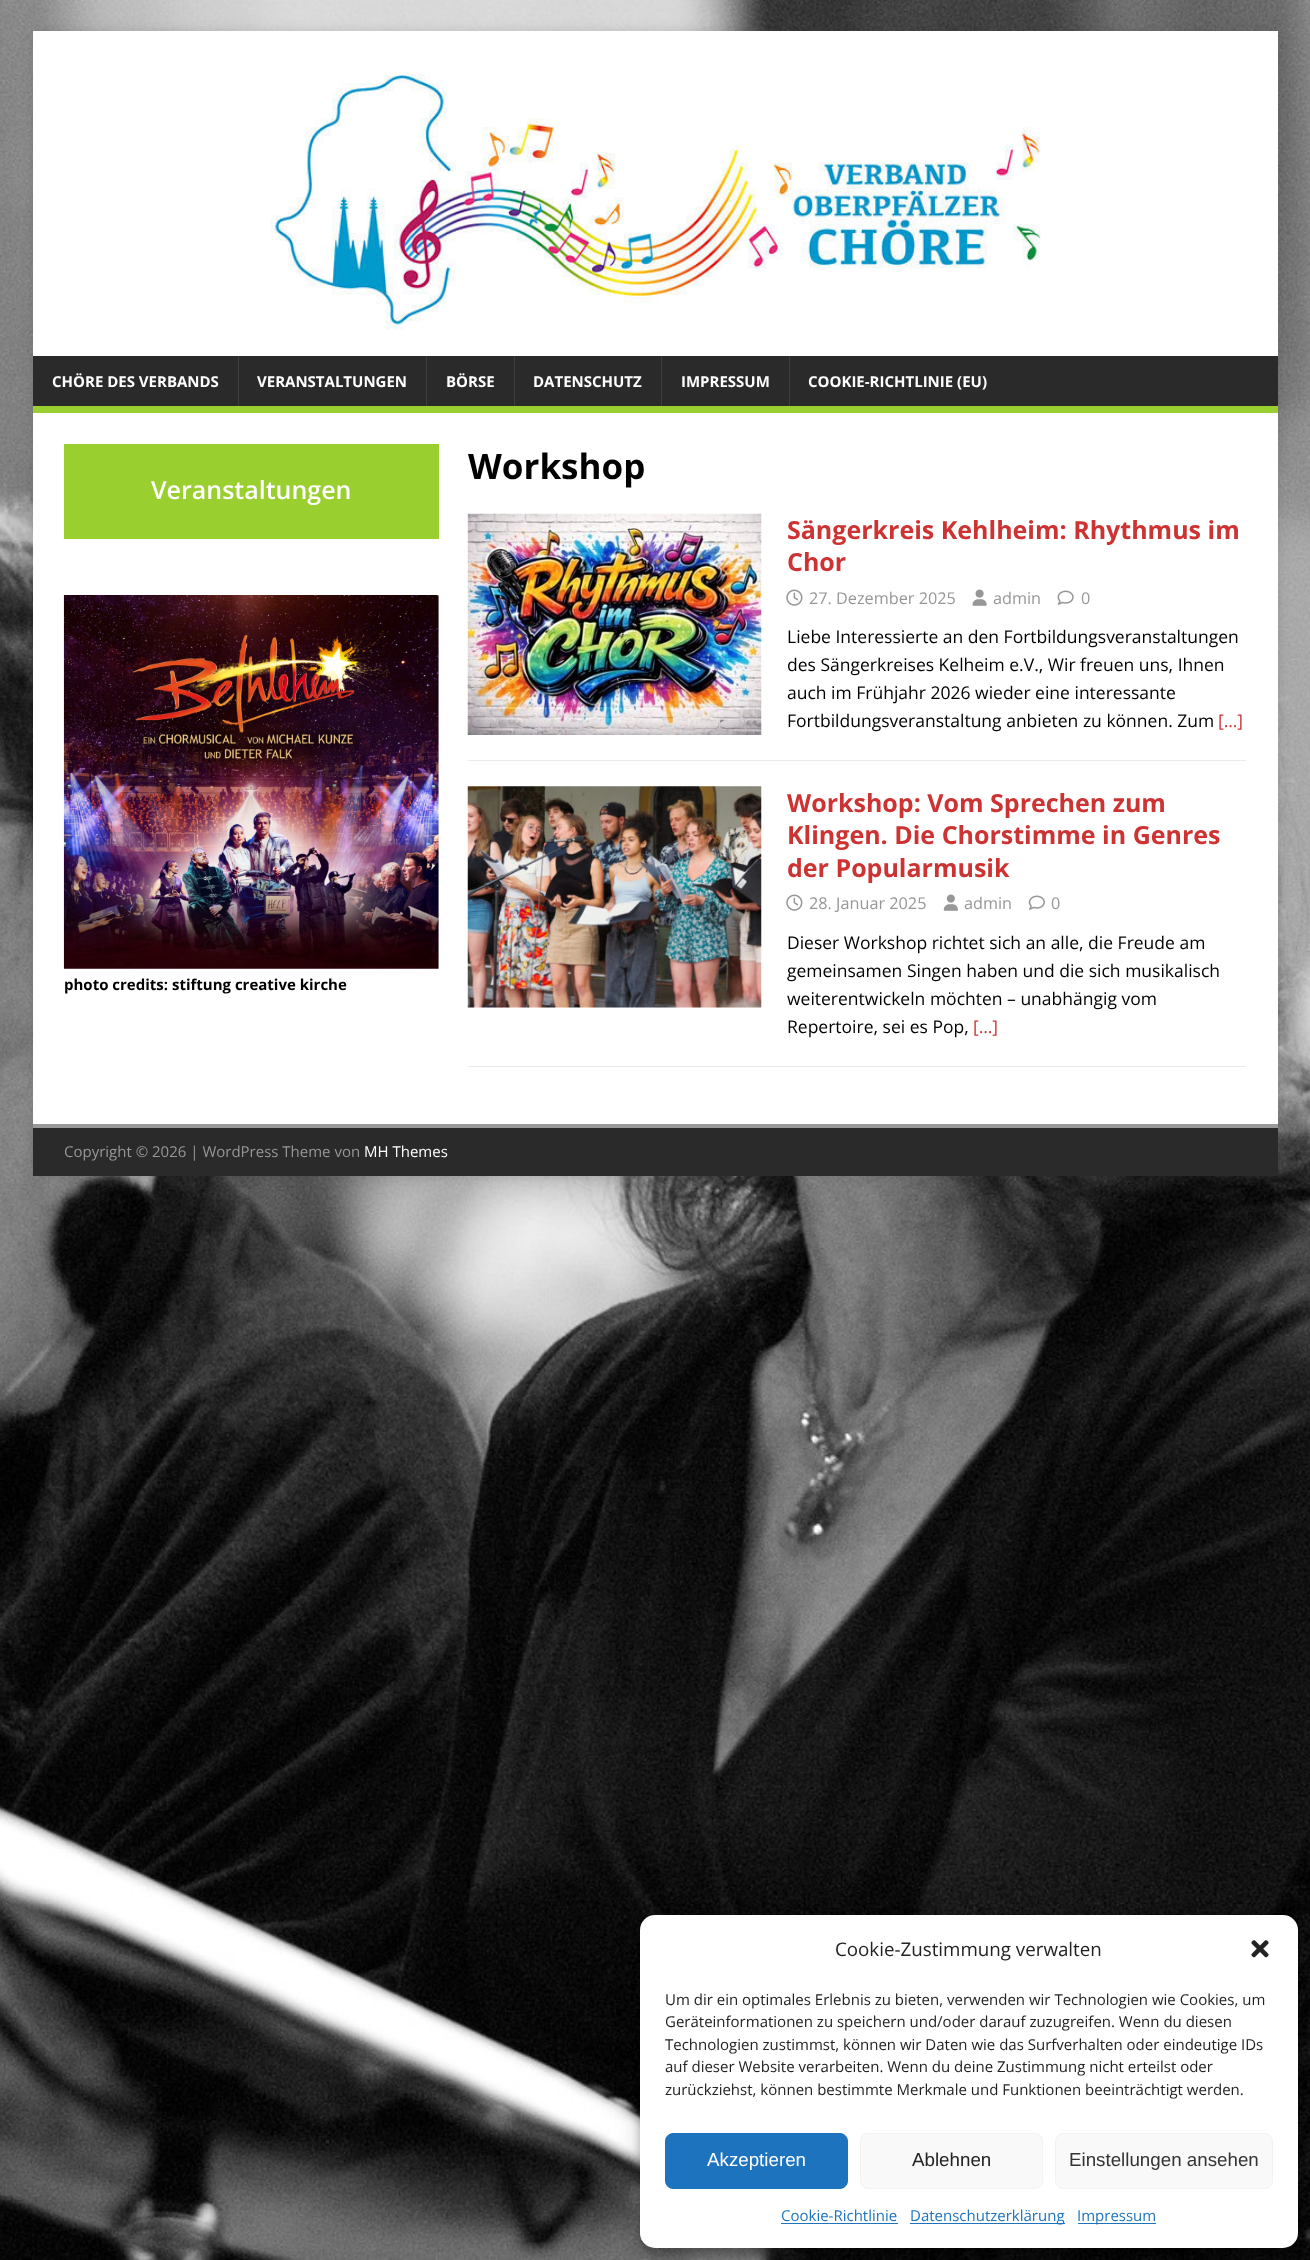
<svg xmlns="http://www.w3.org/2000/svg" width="1310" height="2260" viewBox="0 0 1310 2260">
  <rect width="100%" height="100%" fill="rgb(255,255,255)"/>
  <image x="0" y="0" width="1310" height="2260" href="pic1.png"/>
  <rect x="33" y="31" width="1245" height="1145" fill="rgba(50,50,50,0.17)" filter="blur(6px)"/>
  <rect x="33" y="31" width="1245" height="325" fill="rgb(255,255,255)"/>
  <image x="270" y="74" width="771" height="256" href="pic2.png"/>
  <rect x="33" y="356" width="1245" height="50" fill="rgb(42,42,42)"/>
  <rect x="33" y="406" width="1245" height="7" fill="rgb(153,207,46)"/>
  <text x="52" y="387" font-family="Open Sans" font-size="15" font-weight="bold" fill="rgb(255,255,255)">CHÖRE DES VERBANDS</text>
  <rect x="238" y="356" width="1" height="50" fill="rgb(63,63,63)"/>
  <text x="257" y="387" font-family="Open Sans" font-size="15" font-weight="bold" fill="rgb(255,255,255)">VERANSTALTUNGEN</text>
  <rect x="426" y="356" width="1" height="50" fill="rgb(63,63,63)"/>
  <text x="446" y="387" font-family="Open Sans" font-size="15" font-weight="bold" fill="rgb(255,255,255)">BÖRSE</text>
  <rect x="514" y="356" width="1" height="50" fill="rgb(63,63,63)"/>
  <text x="533" y="387" font-family="Open Sans" font-size="15" font-weight="bold" fill="rgb(255,255,255)">DATENSCHUTZ</text>
  <rect x="661" y="356" width="1" height="50" fill="rgb(63,63,63)"/>
  <text x="681" y="387" font-family="Open Sans" font-size="15" font-weight="bold" fill="rgb(255,255,255)">IMPRESSUM</text>
  <rect x="789" y="356" width="1" height="50" fill="rgb(63,63,63)"/>
  <text x="808" y="387" font-family="Open Sans" font-size="15" font-weight="bold" fill="rgb(255,255,255)">COOKIE-RICHTLINIE (EU)</text>
  <rect x="33" y="413" width="1245" height="711" fill="rgb(255,255,255)"/>
  <rect x="64" y="444" width="375" height="95" fill="rgb(153,207,46)"/>
  <text x="151" y="499" font-family="Open Sans" font-size="25" font-weight="600" fill="rgb(255,255,255)">Veranstaltungen</text>
  <image x="63" y="595" width="376" height="374" href="pic3.png"/>
  <text x="64" y="990" font-family="Open Sans" font-size="15" font-weight="bold" fill="rgb(0,0,0)">photo credits: stiftung creative kirche</text>
  <text x="468" y="479" font-family="Open Sans" font-size="35" font-weight="bold" fill="rgb(0,0,0)">Workshop</text>
  <rect x="468" y="760" width="778" height="1" fill="rgb(235,235,235)"/>
  <image x="467" y="513" width="295" height="222" href="pic4.png"/>
  <g font-family="Open Sans" font-size="25" font-weight="bold" fill="rgb(205,51,51)">
    <text>
      <tspan x="787" y="539">Sängerkreis Kehlheim: Rhythmus im</tspan>
      <tspan x="787" y="571">Chor</tspan>
    </text>
  </g>
  <image x="786" y="589" width="17" height="17" href="pic5.png"/>
  <text x="809" y="604" font-family="Open Sans" font-size="16.25" fill="rgb(151,151,151)">27. Dezember 2025</text>
  <image x="972" y="589" width="15" height="17" href="pic6.png"/>
  <text x="993" y="604" font-family="Open Sans" font-size="16.25" fill="rgb(151,151,151)">admin</text>
  <image x="1057" y="590" width="17" height="15" href="pic7.png"/>
  <text x="1081" y="604" font-family="Open Sans" font-size="16.25" fill="rgb(151,151,151)">0</text>
  <g font-family="Open Sans" font-size="17.5" fill="rgb(0,0,0)">
    <text>
      <tspan x="787" y="643">Liebe Interessierte an den Fortbildungsveranstaltungen</tspan>
      <tspan x="787" y="671">des Sängerkreises Kelheim e.V., Wir freuen uns, Ihnen</tspan>
      <tspan x="787" y="699">auch im Frühjahr 2026 wieder eine interessante</tspan>
      <tspan x="787" y="727">Fortbildungsveranstaltung anbieten zu können. Zum</tspan>
    </text>
  </g>
  <text x="1218" y="727" font-family="Open Sans" font-size="17.5" fill="rgb(205,51,51)">[…]</text>
  <rect x="468" y="1066" width="778" height="1" fill="rgb(235,235,235)"/>
  <image x="467" y="786" width="295" height="222" href="pic8.png"/>
  <g font-family="Open Sans" font-size="25" font-weight="bold" fill="rgb(205,51,51)">
    <text>
      <tspan x="787" y="812">Workshop: Vom Sprechen zum</tspan>
      <tspan x="787" y="844">Klingen. Die Chorstimme in Genres</tspan>
      <tspan x="787" y="877">der Popularmusik</tspan>
    </text>
  </g>
  <image x="786" y="894" width="17" height="17" href="pic5.png"/>
  <text x="809" y="909" font-family="Open Sans" font-size="16.25" fill="rgb(151,151,151)">28. Januar 2025</text>
  <image x="943" y="894" width="15" height="17" href="pic9.png"/>
  <text x="964" y="909" font-family="Open Sans" font-size="16.25" fill="rgb(151,151,151)">admin</text>
  <image x="1028" y="895" width="17" height="15" href="pic10.png"/>
  <text x="1051" y="909" font-family="Open Sans" font-size="16.25" fill="rgb(151,151,151)">0</text>
  <g font-family="Open Sans" font-size="17.5" fill="rgb(0,0,0)">
    <text>
      <tspan x="787" y="949">Dieser Workshop richtet sich an alle, die Freude am</tspan>
      <tspan x="787" y="977">gemeinsamen Singen haben und die sich musikalisch</tspan>
      <tspan x="787" y="1005">weiterentwickeln möchten – unabhängig vom</tspan>
      <tspan x="787" y="1033">Repertoire, sei es Pop,</tspan>
    </text>
  </g>
  <text x="973" y="1033" font-family="Open Sans" font-size="17.5" fill="rgb(205,51,51)">[…]</text>
  <rect x="33" y="1128" width="1245" height="48" fill="rgb(42,42,42)"/>
  <rect x="33" y="1124" width="1245" height="4" fill="rgb(153,153,153)"/>
  <text x="64" y="1157" font-family="Open Sans" font-size="15" fill="rgb(151,151,151)">Copyright © 2026 | WordPress Theme von</text>
  <text x="364" y="1157" font-family="Open Sans" font-size="15" fill="rgb(255,255,255)">MH Themes</text>
  <rect x="640" y="1923" width="658" height="332" rx="15" fill="rgba(0,0,0,0.23)" filter="blur(4px)"/>
  <rect x="640" y="1928" width="658" height="332" rx="15" fill="rgba(0,0,0,0.19)" filter="blur(12.5px)"/>
  <rect x="640" y="1915" width="658" height="333" rx="15" fill="rgb(255,255,255)"/>
  <text x="835" y="1956" font-family="Open Sans" font-size="18.75" fill="rgb(34,34,34)">Cookie-Zustimmung verwalten</text>
  <image x="1251" y="1940" width="18" height="18" href="pic11.png"/>
  <g font-family="Open Sans" font-size="15" fill="rgb(34,34,34)">
    <text>
      <tspan x="665" y="2005">Um dir ein optimales Erlebnis zu bieten, verwenden wir Technologien wie Cookies, um</tspan>
      <tspan x="665" y="2027">Geräteinformationen zu speichern und/oder darauf zuzugreifen. Wenn du diesen</tspan>
      <tspan x="665" y="2050">Technologien zustimmst, können wir Daten wie das Surfverhalten oder eindeutige IDs</tspan>
      <tspan x="665" y="2072">auf dieser Website verarbeiten. Wenn du deine Zustimmung nicht erteilst oder</tspan>
      <tspan x="665" y="2095">zurückziehst, können bestimmte Merkmale und Funktionen beeinträchtigt werden.</tspan>
    </text>
  </g>
  <rect x="665.5" y="2133.5" width="182" height="55" rx="7.5" fill="rgb(30,115,190)" stroke="rgb(30,115,190)"/>
  <text x="707" y="2166" font-family="Liberation Sans" font-size="18.75" fill="rgb(255,255,255)">Akzeptieren</text>
  <rect x="860.5" y="2133.5" width="182" height="55" rx="7.5" fill="rgb(249,249,249)" stroke="rgb(242,242,242)"/>
  <text x="912" y="2166" font-family="Liberation Sans" font-size="18.75" fill="rgb(34,34,34)">Ablehnen</text>
  <rect x="1055.5" y="2133.5" width="217" height="55" rx="7.5" fill="rgb(249,249,249)" stroke="rgb(242,242,242)"/>
  <text x="1069" y="2166" font-family="Liberation Sans" font-size="18.75" fill="rgb(51,51,51)">Einstellungen ansehen</text>
  <text x="781" y="2221" font-family="Open Sans" font-size="15" fill="rgb(30,115,190)">Cookie-Richtlinie</text>
  <rect x="781" y="2223" width="117" height="1" fill="rgb(30,115,190)"/>
  <rect x="910" y="2223" width="155" height="1" fill="rgb(30,115,190)"/>
  <text x="910" y="2221" font-family="Open Sans" font-size="15" fill="rgb(30,115,190)">Datenschutzerklärung</text>
  <rect x="1078" y="2223" width="78" height="1" fill="rgb(30,115,190)"/>
  <text x="1077" y="2221" font-family="Open Sans" font-size="15" fill="rgb(30,115,190)">Impressum</text>
</svg>
